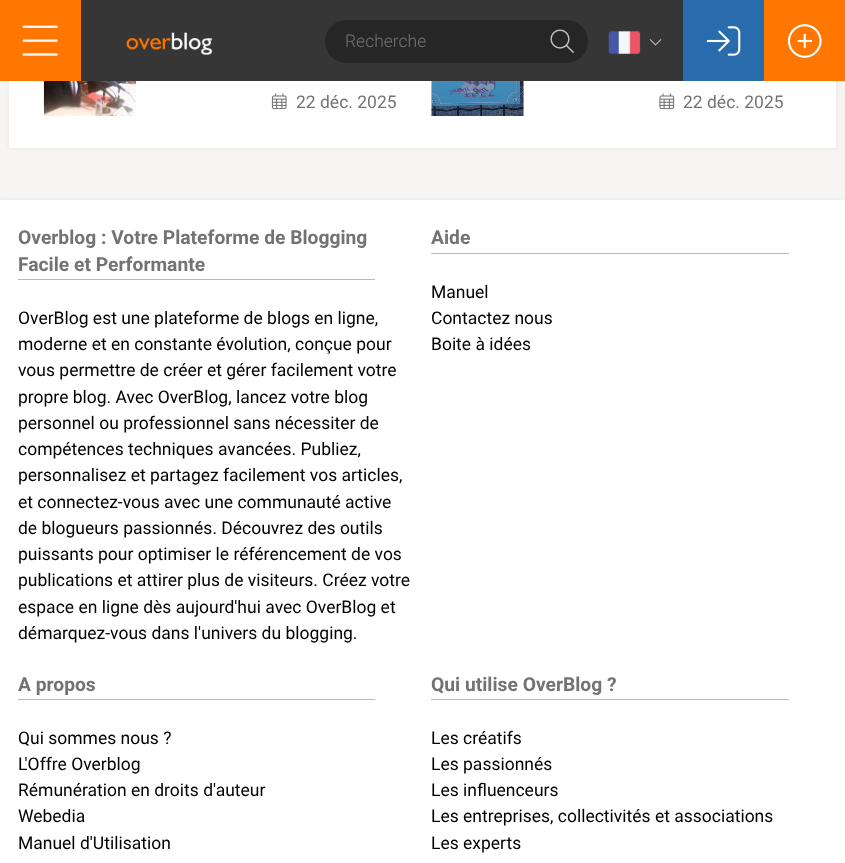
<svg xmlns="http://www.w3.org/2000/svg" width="845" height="863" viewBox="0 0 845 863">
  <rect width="100%" height="100%" fill="rgb(247,245,243)"/>
  <rect x="9" y="-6" width="827" height="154" fill="rgba(0,0,0,0.07)" filter="blur(2px)"/>
  <rect x="81" y="0" width="602" height="81" fill="rgb(54,54,54)"/>
  <rect x="0" y="0" width="81" height="81" fill="rgb(255,118,0)"/>
  <image x="22" y="25" width="36" height="31" href="pic1.png"/>
  <image x="126" y="32" width="87" height="23" href="pic2.png"/>
  <rect x="325" y="20" width="263" height="43" rx="21.5" fill="rgb(38,38,38)"/>
  <text x="345" y="47" font-family="Roboto" font-size="17.5" font-weight="300" fill="rgb(115,115,115)">Recherche</text>
  <image x="550" y="29" width="24" height="24" href="pic3.png"/>
  <image x="608" y="31" width="33" height="23" href="pic4.png"/>
  <image x="649" y="39" width="13" height="7" href="pic5.png"/>
  <rect x="683" y="0" width="81" height="81" fill="rgb(40,108,174)"/>
  <image x="706" y="26" width="35" height="30" href="pic6.png"/>
  <rect x="764" y="0" width="81" height="81" fill="rgb(255,118,0)"/>
  <image x="787" y="24" width="35" height="34" href="pic7.png"/>
  <rect x="9" y="81" width="827" height="67" fill="rgb(255,255,255)"/>
  <image x="43" y="81" width="94" height="36" href="pic8.png"/>
  <image x="271" y="93" width="16" height="17" href="pic9.png"/>
  <text x="296" y="108" font-family="Roboto" font-size="17.5" fill="rgb(115,115,115)">22 déc. 2025</text>
  <image x="431" y="81" width="93" height="35" href="pic10.png"/>
  <image x="659" y="93" width="16" height="17" href="pic11.png"/>
  <text x="683" y="108" font-family="Roboto" font-size="17.5" fill="rgb(115,115,115)">22 déc. 2025</text>
  <rect x="0" y="200" width="845" height="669" fill="rgba(0,0,0,0.07)" filter="blur(2px)"/>
  <rect x="0" y="200" width="845" height="663" fill="rgb(255,255,255)"/>
  <rect x="18" y="279" width="357" height="1" fill="rgb(185,185,185)"/>
  <g font-family="Roboto" font-size="19.25" font-weight="bold" fill="rgb(115,115,115)">
    <text>
      <tspan x="18" y="244">Overblog : Votre Plateforme de Blogging</tspan>
      <tspan x="18" y="271">Facile et Performante</tspan>
    </text>
  </g>
  <g font-family="Roboto" font-size="17.5" fill="rgb(0,0,0)">
    <text>
      <tspan x="18" y="324">OverBlog est une plateforme de blogs en ligne,</tspan>
      <tspan x="18" y="350">moderne et en constante évolution, conçue pour</tspan>
      <tspan x="18" y="376">vous permettre de créer et gérer facilement votre</tspan>
      <tspan x="18" y="403">propre blog. Avec OverBlog, lancez votre blog</tspan>
      <tspan x="18" y="429">personnel ou professionnel sans nécessiter de</tspan>
      <tspan x="18" y="455">compétences techniques avancées. Publiez,</tspan>
      <tspan x="18" y="481">personnalisez et partagez facilement vos articles,</tspan>
      <tspan x="18" y="508">et connectez-vous avec une communauté active</tspan>
      <tspan x="18" y="534">de blogueurs passionnés. Découvrez des outils</tspan>
      <tspan x="18" y="560">puissants pour optimiser le référencement de vos</tspan>
      <tspan x="18" y="586">publications et attirer plus de visiteurs. Créez votre</tspan>
      <tspan x="18" y="613">espace en ligne dès aujourd'hui avec OverBlog et</tspan>
      <tspan x="18" y="639">démarquez-vous dans l'univers du blogging.</tspan>
    </text>
  </g>
  <rect x="431" y="253" width="358" height="1" fill="rgb(185,185,185)"/>
  <text x="431" y="244" font-family="Roboto" font-size="19.25" font-weight="bold" fill="rgb(115,115,115)">Aide</text>
  <g font-family="Roboto" font-size="17.5" fill="rgb(0,0,0)">
    <text>
      <tspan x="431" y="298">Manuel</tspan>
      <tspan x="431" y="324">Contactez nous</tspan>
      <tspan x="431" y="350">Boite à idées</tspan>
    </text>
  </g>
  <rect x="18" y="699" width="357" height="1" fill="rgb(185,185,185)"/>
  <text x="18" y="691" font-family="Roboto" font-size="19.25" font-weight="bold" fill="rgb(115,115,115)">A propos</text>
  <g font-family="Roboto" font-size="17.5" fill="rgb(0,0,0)">
    <text>
      <tspan x="18" y="744">Qui sommes nous ?</tspan>
      <tspan x="18" y="770">L'Offre Overblog</tspan>
      <tspan x="18" y="796">Rémunération en droits d'auteur</tspan>
      <tspan x="18" y="822">Webedia</tspan>
      <tspan x="18" y="849">Manuel d'Utilisation</tspan>
    </text>
  </g>
  <rect x="431" y="699" width="358" height="1" fill="rgb(185,185,185)"/>
  <text x="431" y="691" font-family="Roboto" font-size="19.25" font-weight="bold" fill="rgb(115,115,115)">Qui utilise OverBlog ?</text>
  <g font-family="Roboto" font-size="17.5" fill="rgb(0,0,0)">
    <text>
      <tspan x="431" y="744">Les créatifs</tspan>
      <tspan x="431" y="770">Les passionnés</tspan>
      <tspan x="431" y="796">Les influenceurs</tspan>
      <tspan x="431" y="822">Les entreprises, collectivités et associations</tspan>
      <tspan x="431" y="849">Les experts</tspan>
    </text>
  </g>
</svg>
